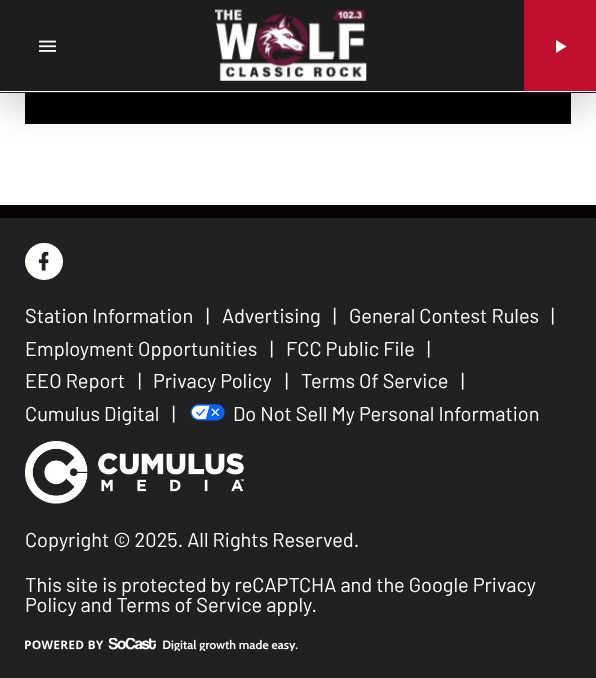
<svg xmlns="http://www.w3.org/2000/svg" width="596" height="678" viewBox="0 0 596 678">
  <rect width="100%" height="100%" fill="rgb(8,4,3)"/>
  <rect x="0" y="93" width="596" height="112" fill="rgb(255,255,255)"/>
  <rect x="25" y="93" width="546" height="31" fill="rgb(0,0,0)"/>
  <rect x="0" y="16" width="596" height="94" fill="rgba(0,0,0,0.16)" filter="blur(15.5px)"/>
  <rect x="0" y="0" width="596" height="93" fill="rgb(29,29,29)"/>
  <rect x="0" y="91" width="596" height="1" fill="rgb(255,255,255)"/>
  <image x="39" y="40" width="17" height="12" href="pic1.png"/>
  <image x="215" y="9" width="152" height="72" href="pic2.png"/>
  <rect x="524" y="0" width="72" height="91" fill="rgb(194,15,47)"/>
  <path d="M556 40V53L566.5 46.5Z" fill="rgb(255,255,255)"/>
  <rect x="0" y="218" width="596" height="460" fill="rgb(33,33,35)"/>
  <rect x="25" y="243" width="38" height="37" rx="18.5" fill="rgb(255,255,255)"/>
  <image x="38" y="251" width="11" height="20" href="pic3.png"/>
  <g font-family="Barlow" font-size="20" fill="rgb(255,255,255)">
    <text x="25" y="323">Station Information</text>
    <text x="206" y="323">|</text>
    <text x="222" y="323">Advertising</text>
    <text x="333" y="323">|</text>
    <text x="349" y="323">General Contest Rules</text>
    <text x="551" y="323">|</text>
    <text x="25" y="356">Employment Opportunities</text>
    <text x="270" y="356">|</text>
    <text x="286" y="356">FCC Public File</text>
    <text x="427" y="356">|</text>
    <text x="25" y="388">EEO Report</text>
    <text x="138" y="388">|</text>
    <text x="153" y="388">Privacy Policy</text>
    <text x="285" y="388">|</text>
    <text x="301" y="388">Terms Of Service</text>
    <text x="461" y="388">|</text>
    <text x="25" y="421">Cumulus Digital</text>
    <text x="172" y="421">|</text>
  </g>
  <image x="190" y="404" width="35" height="17" href="pic4.png"/>
  <text x="233" y="421" font-family="Barlow" font-size="20" fill="rgb(255,255,255)">Do Not Sell My Personal Information</text>
  <image x="25" y="441" width="219" height="63" href="pic5.png"/>
  <g font-family="Barlow" font-size="20" fill="rgb(255,255,255)">
    <text x="25" y="547">Copyright © 2025. All Rights Reserved.</text>
    <text>
      <tspan x="25" y="592">This site is protected by reCAPTCHA and the Google Privacy</tspan>
      <tspan x="25" y="612">Policy and Terms of Service apply.</tspan>
    </text>
  </g>
  <image x="25" y="638" width="273" height="13" href="pic6.png"/>
</svg>
